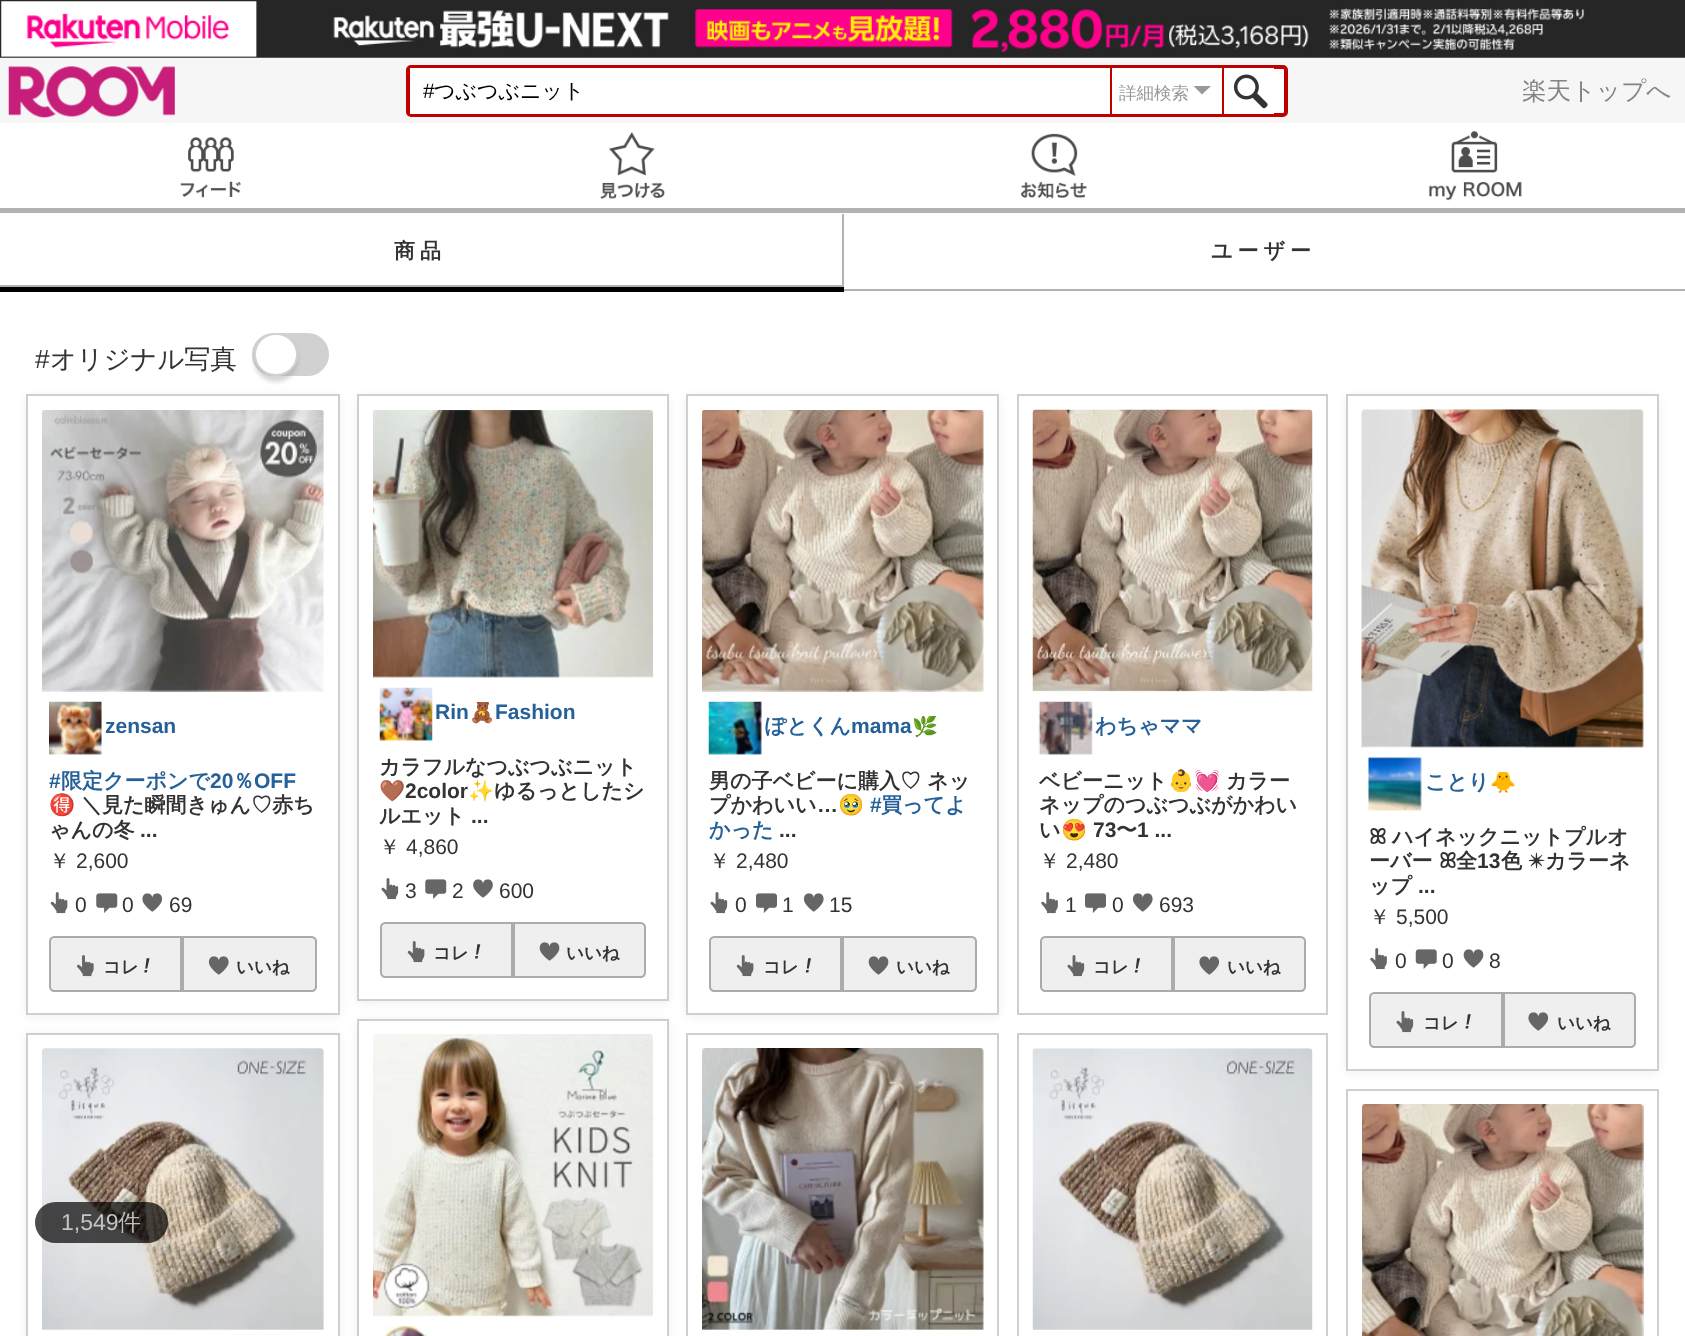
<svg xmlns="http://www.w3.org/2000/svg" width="1685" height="1336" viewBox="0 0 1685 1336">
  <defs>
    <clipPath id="clip1"><rect x="436" y="702" width="175" height="23"/></clipPath>
    <clipPath id="clip2"><rect x="765" y="716" width="175" height="23"/></clipPath>
    <clipPath id="clip3"><rect x="1425" y="772" width="175" height="23"/></clipPath>
  </defs>
  <rect width="100%" height="100%" fill="rgb(255,255,255)"/>
  <image x="0" y="0" width="1685" height="58" href="pic1.png"/>
  <rect x="0" y="58" width="1685" height="65" fill="rgb(246,246,246)"/>
  <rect x="408" y="67" width="878" height="48" rx="3" fill="rgb(255,255,255)" stroke="rgb(191,0,0)" stroke-width="4"/>
  <rect x="410" y="68" width="700" height="46" fill="rgb(255,255,255)"/>
  <text x="423" y="98" font-family="Liberation Sans" font-size="21" fill="rgb(0,0,0)">#</text>
  <text x="434" y="98" font-family="WenQuanYi Zen Hei" font-size="21" font-weight="500" fill="rgb(0,0,0)">つぶつぶニット</text>
  <rect x="1112" y="68" width="110" height="46" fill="rgb(255,255,255)"/>
  <rect x="1110" y="68" width="2" height="46" fill="rgb(191,0,0)"/>
  <text x="1119" y="99" font-family="WenQuanYi Zen Hei" font-size="17.5" font-weight="500" fill="rgb(153,153,153)">詳細検索</text>
  <path d="M1193.5 86H1211L1202 94.5Z" fill="rgb(153,153,153)"/>
  <rect x="1224" y="68" width="50" height="46" fill="rgb(255,255,255)"/>
  <rect x="1222" y="68" width="2" height="46" fill="rgb(191,0,0)"/>
  <image x="1233" y="74" width="35" height="35" href="pic2.png"/>
  <image x="8" y="66" width="167" height="52" href="pic3.png"/>
  <text x="1522" y="99" font-family="WenQuanYi Zen Hei" font-size="24.5" font-weight="500" fill="rgb(132,132,132)">楽天トップへ</text>
  <image x="600" y="132" width="65" height="67" href="pic4.png"/>
  <rect x="844" y="208" width="841" height="5" fill="rgb(178,178,178)"/>
  <image x="1428" y="131" width="94" height="70" href="pic5.png"/>
  <rect x="0" y="208" width="844" height="5" fill="rgb(178,178,178)"/>
  <image x="180" y="137" width="61" height="61" href="pic6.png"/>
  <image x="1021" y="133" width="66" height="66" href="pic7.png"/>
  <rect x="0" y="287" width="844" height="5" fill="rgb(0,0,0)"/>
  <rect x="842" y="214" width="2" height="73" fill="rgb(178,178,178)"/>
  <rect x="0" y="285" width="844" height="2" fill="rgb(178,178,178)"/>
  <text x="394" y="258" font-family="WenQuanYi Zen Hei" font-size="21" font-weight="bold" letter-spacing="5" fill="rgb(51,51,51)">商品</text>
  <rect x="844" y="289" width="841" height="2" fill="rgb(178,178,178)"/>
  <text x="1211" y="258" font-family="WenQuanYi Zen Hei" font-size="21" font-weight="bold" letter-spacing="5" fill="rgb(51,51,51)">ユーザー</text>
  <text x="35" y="368" font-family="Liberation Sans" font-size="26.25" fill="rgb(51,51,51)">#</text>
  <text x="50" y="368" font-family="WenQuanYi Zen Hei" font-size="26.25" font-weight="500" fill="rgb(51,51,51)">オリジナル写真</text>
  <rect x="253" y="334" width="75" height="41" rx="20.5" fill="rgb(209,209,209)" stroke="rgb(209,209,209)" stroke-width="2"/>
  <rect x="254" y="338" width="44" height="44" rx="22" fill="rgba(153,153,153,0.4)" filter="blur(2px)"/>
  <rect x="255" y="334" width="42" height="41" rx="20.5" fill="rgb(255,255,255)" stroke="rgb(209,209,209)" stroke-width="2"/>
  <rect x="26" y="396" width="314" height="621" rx="5" fill="rgb(239,239,239)" filter="blur(5px)"/>
  <rect x="27" y="395" width="312" height="619" fill="rgb(255,255,255)" stroke="rgb(207,207,207)" stroke-width="2"/>
  <image x="42" y="410" width="282" height="282" href="pic8.png"/>
  <image x="49" y="701" width="53" height="54" href="pic9.png"/>
  <g font-family="Liberation Sans" font-size="21" font-weight="bold" fill="rgb(38,96,153)">
    <text x="105" y="733">zensan</text>
    <text x="49" y="788">#</text>
  </g>
  <text x="61" y="788" font-family="WenQuanYi Zen Hei" font-size="21" font-weight="bold" fill="rgb(38,96,153)">限定クーポンで</text>
  <text x="210" y="788" font-family="Liberation Sans" font-size="21" font-weight="bold" fill="rgb(38,96,153)">20</text>
  <text x="233" y="788" font-family="WenQuanYi Zen Hei" font-size="21" font-weight="bold" fill="rgb(38,96,153)">％</text>
  <text x="254" y="788" font-family="Liberation Sans" font-size="21" font-weight="bold" fill="rgb(38,96,153)">OFF</text>
  <text x="49" y="812" font-family="Noto Color Emoji" font-size="21" font-weight="bold" fill="rgb(38,96,153)">🉐</text>
  <g font-family="WenQuanYi Zen Hei" font-size="21" font-weight="bold" fill="rgb(51,51,51)">
    <text x="81" y="812">＼見た瞬間きゅん♡赤ち</text>
    <text x="49" y="837">ゃんの冬</text>
  </g>
  <text x="140" y="837" font-family="Liberation Sans" font-size="21" font-weight="bold" fill="rgb(51,51,51)">...</text>
  <text x="49" y="868" font-family="WenQuanYi Zen Hei" font-size="21" font-weight="500" fill="rgb(51,51,51)">￥</text>
  <text x="76" y="868" font-family="Liberation Sans" font-size="21" fill="rgb(51,51,51)">2,600</text>
  <image x="50" y="892" width="18" height="22" href="pic10.png"/>
  <text x="75" y="912" font-family="Liberation Sans" font-size="21" fill="rgb(51,51,51)">0</text>
  <image x="96" y="893" width="22" height="20" href="pic11.png"/>
  <text x="122" y="912" font-family="Liberation Sans" font-size="21" fill="rgb(51,51,51)">0</text>
  <image x="142" y="893" width="21" height="19" href="pic12.png"/>
  <text x="169" y="912" font-family="Liberation Sans" font-size="21" fill="rgb(51,51,51)">69</text>
  <path d="M54 937H181V991H54C52 991 50 989 50 987V941C50 939 52 937 54 937Z" fill="rgb(239,239,239)" stroke="rgb(171,171,171)" stroke-width="2"/>
  <image x="77" y="955" width="17" height="22" href="pic13.png"/>
  <text x="103" y="973" font-family="WenQuanYi Zen Hei" font-size="17.5" font-weight="bold" fill="rgb(51,51,51)">コレ</text>
  <image x="144" y="958" width="6" height="15" href="pic14.png"/>
  <path d="M183 937H312C314 937 316 939 316 941V987C316 989 314 991 312 991H183Z" fill="rgb(239,239,239)" stroke="rgb(171,171,171)" stroke-width="2"/>
  <image x="208" y="956" width="21" height="19" href="pic15.png"/>
  <text x="236" y="973" font-family="WenQuanYi Zen Hei" font-size="17.5" font-weight="bold" fill="rgb(51,51,51)">いいね</text>
  <rect x="26" y="1034" width="314" height="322" rx="5" fill="rgb(239,239,239)" filter="blur(5px)"/>
  <rect x="27" y="1034" width="312" height="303" fill="rgb(255,255,255)" stroke="rgb(207,207,207)" stroke-width="2"/>
  <image x="42" y="1048" width="282" height="282" href="pic16.png"/>
  <rect x="357" y="396" width="312" height="607" rx="5" fill="rgb(239,239,239)" filter="blur(5px)"/>
  <rect x="358" y="395" width="310" height="605" fill="rgb(255,255,255)" stroke="rgb(207,207,207)" stroke-width="2"/>
  <image x="373" y="410" width="280" height="268" href="pic17.png"/>
  <image x="379" y="687" width="54" height="54" href="pic18.png"/>
  <text x="435" y="719" font-family="Liberation Sans" font-size="21" font-weight="bold" fill="rgb(38,96,153)">Rin</text>
  <g clip-path="url(#clip1)">
    <text x="469" y="719" font-family="Noto Color Emoji" font-size="21" font-weight="bold" fill="rgb(38,96,153)">🧸</text>
  </g>
  <text x="495" y="719" font-family="Liberation Sans" font-size="21" font-weight="bold" fill="rgb(38,96,153)">Fashion</text>
  <text x="379" y="774" font-family="WenQuanYi Zen Hei" font-size="21" font-weight="bold" fill="rgb(51,51,51)">カラフルなつぶつぶニット</text>
  <text x="379" y="798" font-family="Noto Color Emoji" font-size="21" font-weight="bold" fill="rgb(51,51,51)">🤎</text>
  <text x="405" y="798" font-family="Liberation Sans" font-size="21" font-weight="bold" fill="rgb(51,51,51)">2color</text>
  <text x="468" y="798" font-family="Noto Color Emoji" font-size="21" font-weight="bold" fill="rgb(51,51,51)">✨</text>
  <g font-family="WenQuanYi Zen Hei" font-size="21" font-weight="bold" fill="rgb(51,51,51)">
    <text x="494" y="798">ゆるっとしたシ</text>
    <text x="379" y="823">ルエット</text>
  </g>
  <text x="471" y="823" font-family="Liberation Sans" font-size="21" font-weight="bold" fill="rgb(51,51,51)">...</text>
  <text x="379" y="854" font-family="WenQuanYi Zen Hei" font-size="21" font-weight="500" fill="rgb(51,51,51)">￥</text>
  <text x="406" y="854" font-family="Liberation Sans" font-size="21" fill="rgb(51,51,51)">4,860</text>
  <image x="381" y="878" width="18" height="22" href="pic19.png"/>
  <text x="405" y="898" font-family="Liberation Sans" font-size="21" fill="rgb(51,51,51)">3</text>
  <image x="425" y="879" width="22" height="20" href="pic11.png"/>
  <text x="452" y="898" font-family="Liberation Sans" font-size="21" fill="rgb(51,51,51)">2</text>
  <image x="473" y="879" width="20" height="19" href="pic20.png"/>
  <text x="499" y="898" font-family="Liberation Sans" font-size="21" fill="rgb(51,51,51)">600</text>
  <path d="M385 923H512V977H385C383 977 381 975 381 973V927C381 925 383 923 385 923Z" fill="rgb(239,239,239)" stroke="rgb(171,171,171)" stroke-width="2"/>
  <image x="407" y="941" width="18" height="22" href="pic21.png"/>
  <text x="433" y="959" font-family="WenQuanYi Zen Hei" font-size="17.5" font-weight="bold" fill="rgb(51,51,51)">コレ</text>
  <image x="475" y="944" width="6" height="15" href="pic22.png"/>
  <path d="M514 923H641C643 923 645 925 645 927V973C645 975 643 977 641 977H514Z" fill="rgb(239,239,239)" stroke="rgb(171,171,171)" stroke-width="2"/>
  <image x="539" y="942" width="21" height="19" href="pic23.png"/>
  <text x="566" y="959" font-family="WenQuanYi Zen Hei" font-size="17.5" font-weight="bold" fill="rgb(51,51,51)">いいね</text>
  <rect x="357" y="1020" width="312" height="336" rx="5" fill="rgb(239,239,239)" filter="blur(5px)"/>
  <rect x="358" y="1020" width="310" height="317" fill="rgb(255,255,255)" stroke="rgb(207,207,207)" stroke-width="2"/>
  <image x="373" y="1034" width="280" height="283" href="pic24.png"/>
  <image x="380" y="1326" width="50" height="10" href="pic25.png"/>
  <rect x="686" y="396" width="313" height="621" rx="5" fill="rgb(239,239,239)" filter="blur(5px)"/>
  <rect x="687" y="395" width="311" height="619" fill="rgb(255,255,255)" stroke="rgb(207,207,207)" stroke-width="2"/>
  <image x="702" y="410" width="282" height="282" href="pic26.png"/>
  <image x="708" y="701" width="54" height="54" href="pic27.png"/>
  <text x="765" y="733" font-family="WenQuanYi Zen Hei" font-size="21" font-weight="bold" fill="rgb(38,96,153)">ぽとくん</text>
  <text x="851" y="733" font-family="Liberation Sans" font-size="21" font-weight="bold" fill="rgb(38,96,153)">mama</text>
  <g clip-path="url(#clip2)">
    <text x="912" y="733" font-family="Noto Color Emoji" font-size="21" font-weight="bold" fill="rgb(38,96,153)">🌿</text>
  </g>
  <g font-family="WenQuanYi Zen Hei" font-size="21" font-weight="bold" fill="rgb(51,51,51)">
    <text>
      <tspan x="709" y="788">男の子ベビーに購入♡ ネッ</tspan>
      <tspan x="709" y="812">プかわいい</tspan>
    </text>
  </g>
  <text x="817" y="812" font-family="Liberation Sans" font-size="21" font-weight="bold" fill="rgb(51,51,51)">…</text>
  <text x="838" y="812" font-family="Noto Color Emoji" font-size="21" font-weight="bold" fill="rgb(51,51,51)">🥹</text>
  <text x="870" y="812" font-family="Liberation Sans" font-size="21" font-weight="bold" fill="rgb(38,96,153)">#</text>
  <g font-family="WenQuanYi Zen Hei" font-size="21" font-weight="bold" fill="rgb(38,96,153)">
    <text x="881" y="812">買ってよ</text>
    <text x="709" y="837">かった</text>
  </g>
  <text x="779" y="837" font-family="Liberation Sans" font-size="21" font-weight="bold" fill="rgb(51,51,51)">...</text>
  <text x="709" y="868" font-family="WenQuanYi Zen Hei" font-size="21" font-weight="500" fill="rgb(51,51,51)">￥</text>
  <text x="736" y="868" font-family="Liberation Sans" font-size="21" fill="rgb(51,51,51)">2,480</text>
  <image x="710" y="892" width="18" height="22" href="pic19.png"/>
  <text x="735" y="912" font-family="Liberation Sans" font-size="21" fill="rgb(51,51,51)">0</text>
  <image x="756" y="893" width="21" height="20" href="pic28.png"/>
  <text x="782" y="912" font-family="Liberation Sans" font-size="21" fill="rgb(51,51,51)">1</text>
  <image x="803" y="893" width="21" height="19" href="pic29.png"/>
  <text x="829" y="912" font-family="Liberation Sans" font-size="21" fill="rgb(51,51,51)">15</text>
  <path d="M714 937H841V991H714C712 991 710 989 710 987V941C710 939 712 937 714 937Z" fill="rgb(239,239,239)" stroke="rgb(171,171,171)" stroke-width="2"/>
  <image x="736" y="955" width="18" height="22" href="pic21.png"/>
  <text x="763" y="973" font-family="WenQuanYi Zen Hei" font-size="17.5" font-weight="bold" fill="rgb(51,51,51)">コレ</text>
  <image x="805" y="958" width="6" height="15" href="pic30.png"/>
  <path d="M843 937H972C974 937 976 939 976 941V987C976 989 974 991 972 991H843Z" fill="rgb(239,239,239)" stroke="rgb(171,171,171)" stroke-width="2"/>
  <image x="868" y="956" width="21" height="19" href="pic23.png"/>
  <text x="896" y="973" font-family="WenQuanYi Zen Hei" font-size="17.5" font-weight="bold" fill="rgb(51,51,51)">いいね</text>
  <rect x="687" y="1034" width="311" height="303" fill="none" stroke="rgb(207,207,207)" stroke-width="2"/>
  <image x="702" y="1048" width="282" height="282" href="pic31.png"/>
  <rect x="1018" y="395" width="309" height="619" fill="none" stroke="rgb(207,207,207)" stroke-width="2"/>
  <image x="1032" y="409" width="281" height="283" href="pic32.png"/>
  <image x="1038" y="701" width="55" height="54" href="pic33.png"/>
  <text x="1095" y="733" font-family="WenQuanYi Zen Hei" font-size="21" font-weight="bold" fill="rgb(38,96,153)">わちゃママ</text>
  <text x="1039" y="788" font-family="WenQuanYi Zen Hei" font-size="21" font-weight="bold" fill="rgb(51,51,51)">ベビーニット</text>
  <text x="1168" y="788" font-family="Noto Color Emoji" font-size="21" font-weight="bold" fill="rgb(51,51,51)">👶💓</text>
  <g font-family="WenQuanYi Zen Hei" font-size="21" font-weight="bold" fill="rgb(51,51,51)">
    <text x="1226" y="788">カラー</text>
    <text>
      <tspan x="1039" y="812">ネップのつぶつぶがかわい</tspan>
      <tspan x="1039" y="837">い</tspan>
    </text>
  </g>
  <text x="1061" y="837" font-family="Noto Color Emoji" font-size="21" font-weight="bold" fill="rgb(51,51,51)">😍</text>
  <text x="1093" y="837" font-family="Liberation Sans" font-size="21" font-weight="bold" fill="rgb(51,51,51)">73</text>
  <text x="1116" y="837" font-family="WenQuanYi Zen Hei" font-size="21" font-weight="bold" fill="rgb(51,51,51)">〜</text>
  <text x="1137" y="837" font-family="Liberation Sans" font-size="21" font-weight="bold" fill="rgb(51,51,51)">1 ...</text>
  <text x="1039" y="868" font-family="WenQuanYi Zen Hei" font-size="21" font-weight="500" fill="rgb(51,51,51)">￥</text>
  <text x="1066" y="868" font-family="Liberation Sans" font-size="21" fill="rgb(51,51,51)">2,480</text>
  <image x="1041" y="892" width="17" height="22" href="pic34.png"/>
  <text x="1065" y="912" font-family="Liberation Sans" font-size="21" fill="rgb(51,51,51)">1</text>
  <image x="1085" y="893" width="21" height="20" href="pic28.png"/>
  <text x="1112" y="912" font-family="Liberation Sans" font-size="21" fill="rgb(51,51,51)">0</text>
  <image x="1132" y="893" width="21" height="19" href="pic29.png"/>
  <text x="1159" y="912" font-family="Liberation Sans" font-size="21" fill="rgb(51,51,51)">693</text>
  <path d="M1045 937H1172V991H1045C1043 991 1041 989 1041 987V941C1041 939 1043 937 1045 937Z" fill="rgb(239,239,239)" stroke="rgb(171,171,171)" stroke-width="2"/>
  <image x="1067" y="955" width="18" height="22" href="pic35.png"/>
  <text x="1093" y="973" font-family="WenQuanYi Zen Hei" font-size="17.5" font-weight="bold" fill="rgb(51,51,51)">コレ</text>
  <image x="1134" y="958" width="6" height="15" href="pic30.png"/>
  <path d="M1174 937H1301C1303 937 1305 939 1305 941V987C1305 989 1303 991 1301 991H1174Z" fill="rgb(239,239,239)" stroke="rgb(171,171,171)" stroke-width="2"/>
  <image x="1199" y="956" width="21" height="19" href="pic36.png"/>
  <text x="1227" y="973" font-family="WenQuanYi Zen Hei" font-size="17.5" font-weight="bold" fill="rgb(51,51,51)">いいね</text>
  <rect x="1018" y="1034" width="309" height="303" fill="none" stroke="rgb(207,207,207)" stroke-width="2"/>
  <image x="1032" y="1048" width="281" height="282" href="pic37.png"/>
  <rect x="1346" y="396" width="313" height="677" rx="5" fill="rgb(239,239,239)" filter="blur(5px)"/>
  <rect x="1347" y="395" width="311" height="675" fill="rgb(255,255,255)" stroke="rgb(207,207,207)" stroke-width="2"/>
  <image x="1361" y="409" width="283" height="339" href="pic38.png"/>
  <image x="1368" y="757" width="54" height="54" href="pic39.png"/>
  <text x="1425" y="789" font-family="WenQuanYi Zen Hei" font-size="21" font-weight="bold" fill="rgb(38,96,153)">ことり</text>
  <g clip-path="url(#clip3)">
    <text x="1490" y="789" font-family="Noto Color Emoji" font-size="21" font-weight="bold" fill="rgb(38,96,153)">🐥</text>
  </g>
  <text x="1369" y="844" font-family="FreeSans" font-size="21" font-weight="bold" fill="rgb(51,51,51)">ꕤ</text>
  <g font-family="WenQuanYi Zen Hei" font-size="21" font-weight="bold" fill="rgb(51,51,51)">
    <text x="1392" y="844">ハイネックニットプルオ</text>
    <text x="1369" y="868">ーバー</text>
  </g>
  <text x="1439" y="868" font-family="FreeSans" font-size="21" font-weight="bold" fill="rgb(51,51,51)">ꕤ</text>
  <text x="1456" y="868" font-family="WenQuanYi Zen Hei" font-size="21" font-weight="bold" fill="rgb(51,51,51)">全</text>
  <text x="1477" y="868" font-family="Liberation Sans" font-size="21" font-weight="bold" fill="rgb(51,51,51)">13</text>
  <text x="1501" y="868" font-family="WenQuanYi Zen Hei" font-size="21" font-weight="bold" fill="rgb(51,51,51)">色</text>
  <text x="1528" y="868" font-family="FreeSans" font-size="21" font-weight="bold" fill="rgb(51,51,51)">✴︎</text>
  <g font-family="WenQuanYi Zen Hei" font-size="21" font-weight="bold" fill="rgb(51,51,51)">
    <text x="1545" y="868">カラーネ</text>
    <text x="1369" y="893">ップ</text>
  </g>
  <text x="1418" y="893" font-family="Liberation Sans" font-size="21" font-weight="bold" fill="rgb(51,51,51)">...</text>
  <text x="1369" y="924" font-family="WenQuanYi Zen Hei" font-size="21" font-weight="500" fill="rgb(51,51,51)">￥</text>
  <text x="1396" y="924" font-family="Liberation Sans" font-size="21" fill="rgb(51,51,51)">5,500</text>
  <image x="1370" y="948" width="17" height="22" href="pic34.png"/>
  <text x="1395" y="968" font-family="Liberation Sans" font-size="21" fill="rgb(51,51,51)">0</text>
  <image x="1415" y="949" width="22" height="20" href="pic40.png"/>
  <text x="1442" y="968" font-family="Liberation Sans" font-size="21" fill="rgb(51,51,51)">0</text>
  <image x="1463" y="949" width="21" height="19" href="pic41.png"/>
  <text x="1489" y="968" font-family="Liberation Sans" font-size="21" fill="rgb(51,51,51)">8</text>
  <path d="M1374 993H1502V1047H1374C1372 1047 1370 1045 1370 1043V997C1370 995 1372 993 1374 993Z" fill="rgb(239,239,239)" stroke="rgb(171,171,171)" stroke-width="2"/>
  <image x="1396" y="1011" width="18" height="22" href="pic35.png"/>
  <text x="1423" y="1029" font-family="WenQuanYi Zen Hei" font-size="17.5" font-weight="bold" fill="rgb(51,51,51)">コレ</text>
  <image x="1465" y="1014" width="6" height="15" href="pic42.png"/>
  <path d="M1504 993H1631C1633 993 1635 995 1635 997V1043C1635 1045 1633 1047 1631 1047H1504Z" fill="rgb(239,239,239)" stroke="rgb(171,171,171)" stroke-width="2"/>
  <image x="1528" y="1012" width="21" height="19" href="pic36.png"/>
  <text x="1557" y="1029" font-family="WenQuanYi Zen Hei" font-size="17.5" font-weight="bold" fill="rgb(51,51,51)">いいね</text>
  <rect x="1347" y="1090" width="311" height="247" fill="none" stroke="rgb(207,207,207)" stroke-width="2"/>
  <image x="1362" y="1104" width="282" height="232" href="pic43.png"/>
  <rect x="35" y="1202" width="133" height="41" rx="20.5" fill="rgba(0,0,0,0.7)"/>
  <text x="61" y="1230" font-family="Liberation Sans" font-size="23" fill="rgb(197,197,197)">1,549</text>
  <text x="118" y="1230" font-family="WenQuanYi Zen Hei" font-size="23" font-weight="500" fill="rgb(190,188,187)">件</text>
</svg>
